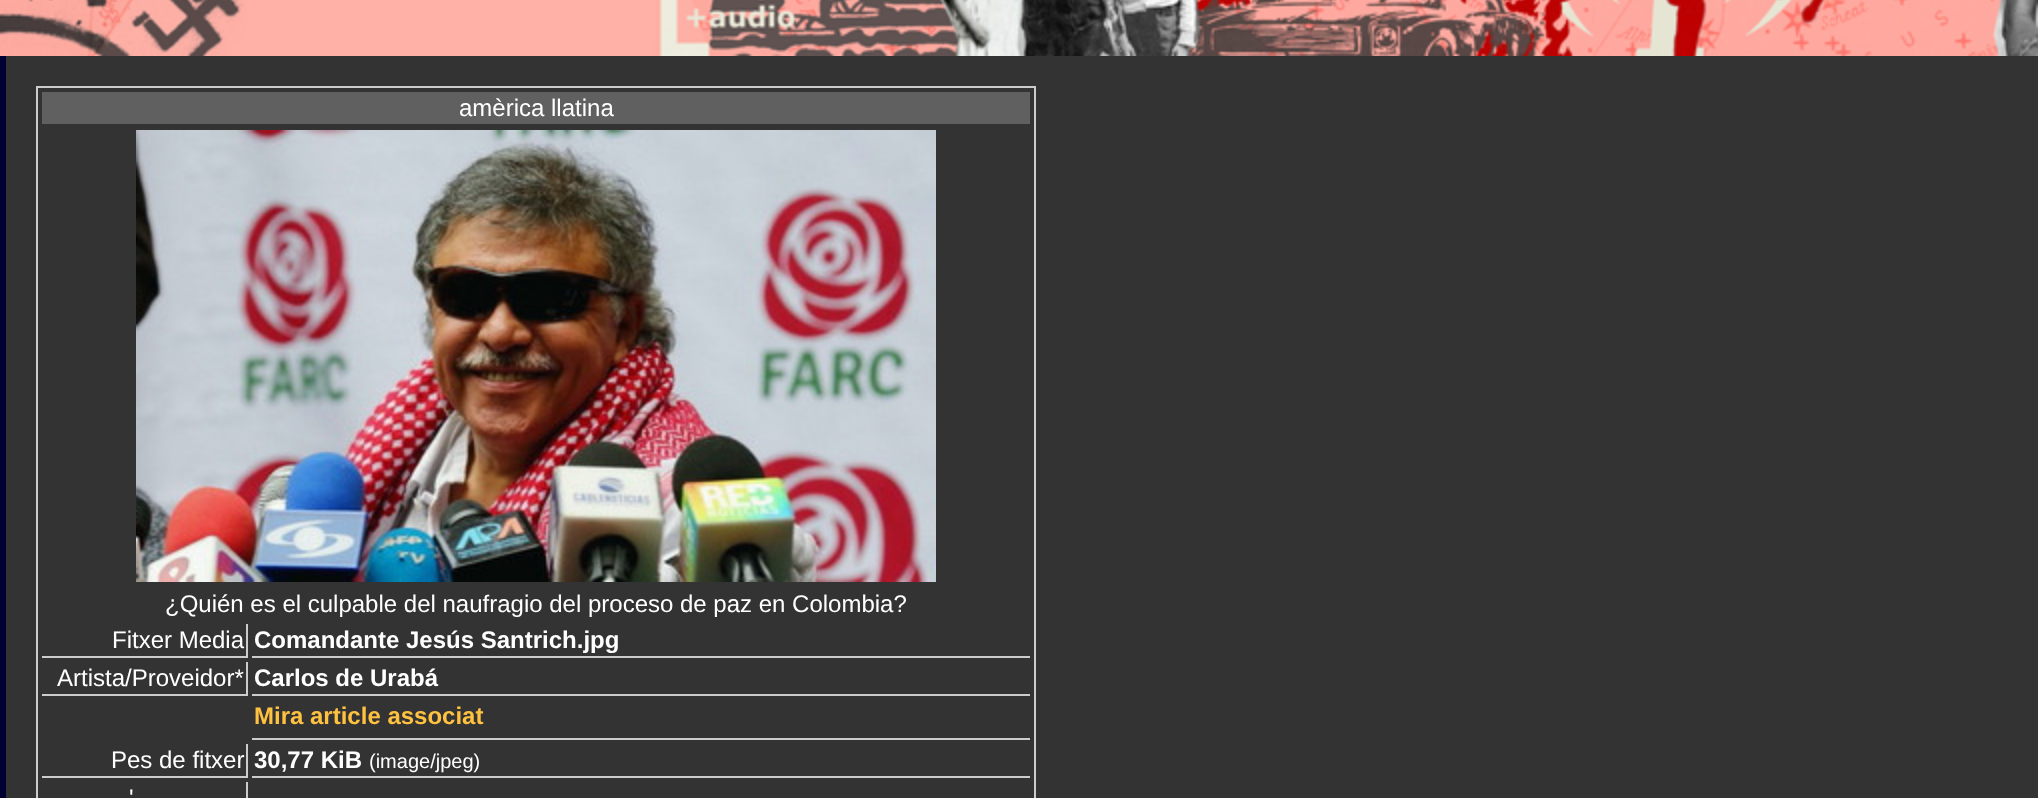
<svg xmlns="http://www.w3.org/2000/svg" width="2038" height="798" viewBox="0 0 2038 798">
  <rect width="100%" height="100%" fill="rgb(51,51,51)"/>
  <image x="0" y="0" width="314" height="56" href="pic1.png"/>
  <image x="314" y="0" width="1724" height="56" href="pic2.png"/>
  <rect x="0" y="56" width="6" height="742" fill="rgb(0,0,51)"/>
  <rect x="37" y="87" width="998" height="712" fill="none" stroke="rgb(204,204,204)" stroke-width="2"/>
  <rect x="42" y="92" width="988" height="32" fill="rgb(96,96,96)"/>
  <text x="459" y="116" font-family="Liberation Sans" font-size="24" fill="rgb(255,255,255)">amèrica llatina</text>
  <image x="136" y="130" width="800" height="452" href="pic3.png"/>
  <text x="165" y="612" font-family="Liberation Sans" font-size="24" fill="rgb(255,255,255)">¿Quién es el culpable del naufragio del proceso de paz en Colombia?</text>
  <rect x="246" y="624" width="2" height="34" fill="rgb(204,204,204)"/>
  <rect x="42" y="656" width="206" height="2" fill="rgb(204,204,204)"/>
  <text x="112" y="648" font-family="Liberation Sans" font-size="24" fill="rgb(255,255,255)">Fitxer Media</text>
  <rect x="252" y="656" width="778" height="2" fill="rgb(204,204,204)"/>
  <text x="254" y="648" font-family="Liberation Sans" font-size="24" font-weight="bold" fill="rgb(255,255,255)">Comandante Jesús Santrich.jpg</text>
  <rect x="246" y="662" width="2" height="34" fill="rgb(204,204,204)"/>
  <rect x="42" y="694" width="206" height="2" fill="rgb(204,204,204)"/>
  <text x="57" y="686" font-family="Liberation Sans" font-size="24" fill="rgb(255,255,255)">Artista/Proveidor*</text>
  <rect x="252" y="694" width="778" height="2" fill="rgb(204,204,204)"/>
  <text x="254" y="686" font-family="Liberation Sans" font-size="24" font-weight="bold" fill="rgb(255,255,255)">Carlos de Urabá</text>
  <rect x="252" y="738" width="778" height="2" fill="rgb(204,204,204)"/>
  <text x="254" y="724" font-family="Liberation Sans" font-size="24" font-weight="bold" fill="rgb(255,193,64)">Mira article associat</text>
  <rect x="246" y="744" width="2" height="34" fill="rgb(204,204,204)"/>
  <rect x="42" y="776" width="206" height="2" fill="rgb(204,204,204)"/>
  <text x="111" y="768" font-family="Liberation Sans" font-size="24" fill="rgb(255,255,255)">Pes de fitxer</text>
  <rect x="252" y="776" width="778" height="2" fill="rgb(204,204,204)"/>
  <text x="254" y="768" font-family="Liberation Sans" font-size="24" font-weight="bold" fill="rgb(255,255,255)">30,77 KiB</text>
  <text x="369" y="768" font-family="Liberation Sans" font-size="20" fill="rgb(255,255,255)">(image/jpeg)</text>
  <rect x="246" y="782" width="2" height="16" fill="rgb(204,204,204)"/>
  <text x="129" y="806" font-family="Liberation Sans" font-size="24" fill="rgb(255,255,255)">'</text>
</svg>
